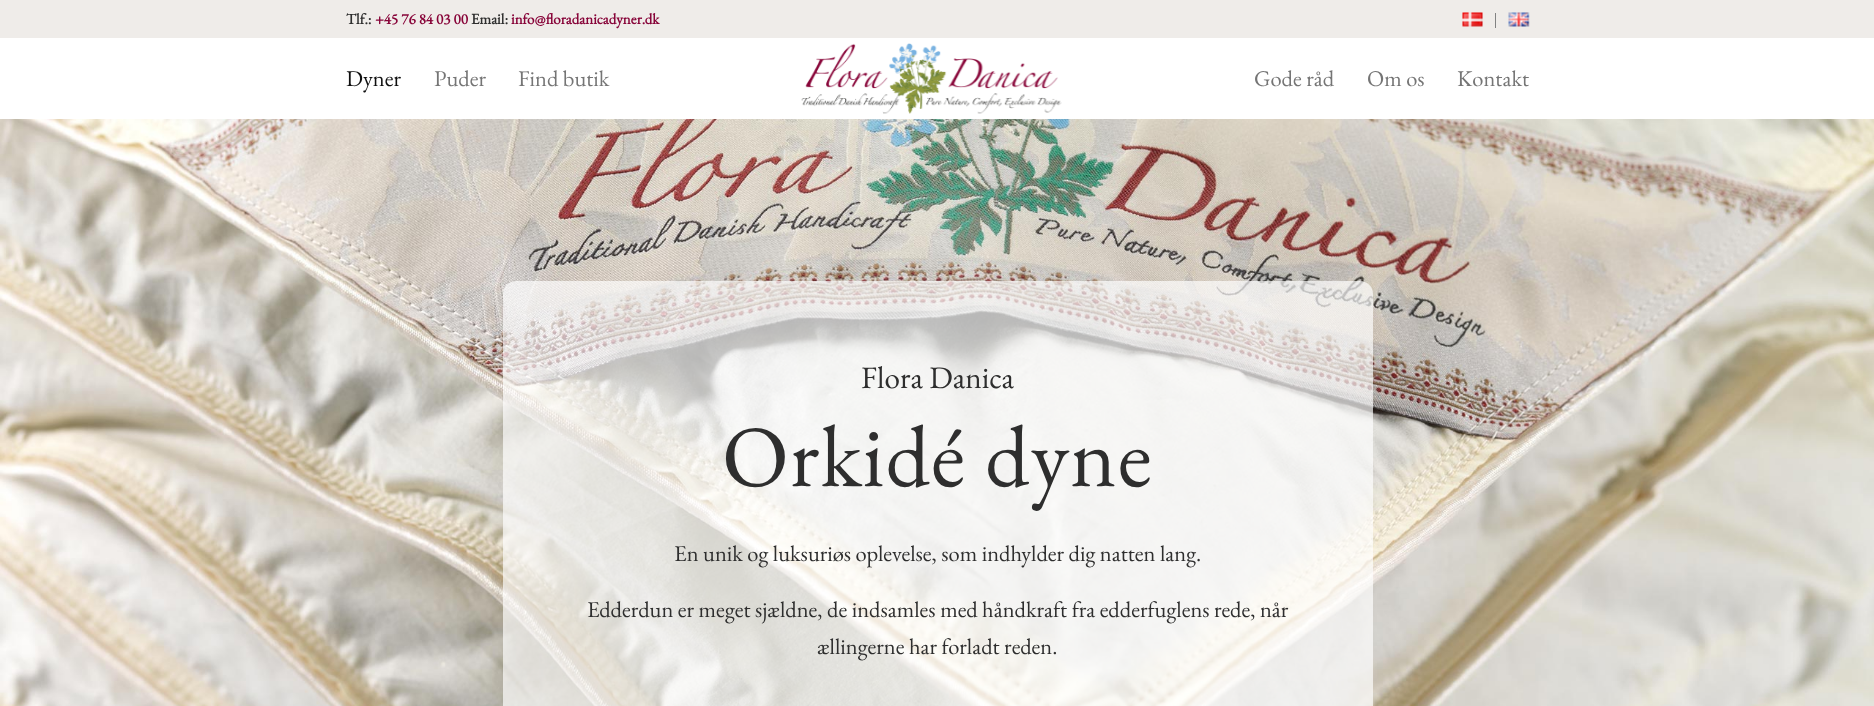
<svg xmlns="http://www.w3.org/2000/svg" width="1874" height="706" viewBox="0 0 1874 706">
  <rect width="100%" height="100%" fill="rgb(255,255,255)"/>
  <rect x="0" y="0" width="1874" height="38" fill="rgb(239,236,233)"/>
  <text x="346" y="24" font-family="EB Garamond" font-size="15" font-weight="bold" fill="rgb(46,46,46)">Tlf.:</text>
  <text x="375" y="24" font-family="EB Garamond" font-size="15" font-weight="bold" fill="rgb(135,3,56)">+45 76 84 03 00</text>
  <text x="471" y="24" font-family="EB Garamond" font-size="15" font-weight="bold" fill="rgb(46,46,46)">Email:</text>
  <text x="511" y="24" font-family="EB Garamond" font-size="15" font-weight="bold" fill="rgb(135,3,56)">info@floradanicadyner.dk</text>
  <rect x="1495" y="13" width="1" height="15" fill="rgb(130,130,130)"/>
  <image x="1462" y="12" width="21" height="15" href="pic1.png"/>
  <image x="1508" y="12" width="22" height="15" href="pic2.png"/>
  <text x="346" y="86" font-family="EB Garamond" font-size="22.5" fill="rgb(15,15,15)">Dyner</text>
  <g font-family="EB Garamond" font-size="22.5" fill="rgb(117,117,117)">
    <text x="434" y="86">Puder</text>
    <text x="518" y="86">Find butik</text>
  </g>
  <image x="801" y="43" width="261" height="71" href="pic3.png"/>
  <g font-family="EB Garamond" font-size="22.5" fill="rgb(117,117,117)">
    <text x="1254" y="86">Gode råd</text>
    <text x="1367" y="86">Om os</text>
    <text x="1457" y="86">Kontakt</text>
  </g>
  <image x="0" y="118" width="1874" height="588" href="pic4.png"/>
  <rect x="0" y="118" width="1874" height="1" fill="rgba(255,255,255,0.95)"/>
  <rect x="503" y="281" width="870" height="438" rx="13" fill="rgba(255,255,255,0.68)"/>
  <text x="861" y="388" font-family="EB Garamond" font-size="31.25" fill="rgb(46,46,46)">Flora Danica</text>
  <text x="722" y="486" font-family="EB Garamond" font-size="87.5" letter-spacing="1.25" fill="rgb(46,46,46)">Orkidé dyne</text>
  <g font-family="EB Garamond" font-size="22.5" fill="rgb(46,46,46)">
    <text x="674" y="561">En unik og luksuriøs oplevelse, som indhylder dig natten lang.</text>
    <text x="587" y="617">Edderdun er meget sjældne, de indsamles med håndkraft fra edderfuglens rede, når</text>
    <text x="817" y="654">ællingerne har forladt reden.</text>
  </g>
</svg>
